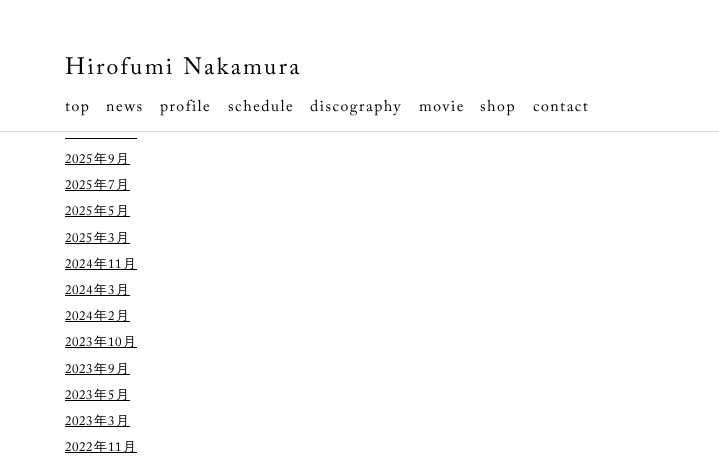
<svg xmlns="http://www.w3.org/2000/svg" width="719" height="470" viewBox="0 0 719 470">
  <rect width="100%" height="100%" fill="rgb(255,255,255)"/>
  <rect x="0" y="131" width="719" height="1" fill="rgb(221,221,221)"/>
  <text x="65" y="74" font-family="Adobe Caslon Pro" font-size="23.6" letter-spacing="2.4" fill="rgb(0,0,0)">Hirofumi Nakamura</text>
  <g font-family="Adobe Caslon Pro" font-size="15.75" letter-spacing="1.5" fill="rgb(0,0,0)">
    <text x="65" y="111">top</text>
    <text x="106" y="111">news</text>
    <text x="160" y="111">profile</text>
    <text x="228" y="111">schedule</text>
    <text x="310" y="111">discography</text>
    <text x="419" y="111">movie</text>
    <text x="480" y="111">shop</text>
    <text x="533" y="111">contact</text>
  </g>
  <rect x="65" y="138" width="72" height="1" fill="rgb(0,0,0)"/>
  <text x="65" y="163" font-family="Adobe Caslon Pro" font-size="13" letter-spacing="0.5" fill="rgb(0,0,0)">2025</text>
  <rect x="65" y="164" width="65" height="1" fill="rgb(0,0,0)"/>
  <text x="94" y="163" font-family="WenQuanYi Zen Hei" font-size="13" font-weight="500" letter-spacing="0.5" fill="rgb(0,0,0)">年</text>
  <text x="108" y="163" font-family="Adobe Caslon Pro" font-size="13" letter-spacing="0.5" fill="rgb(0,0,0)">9</text>
  <text x="116" y="163" font-family="WenQuanYi Zen Hei" font-size="13" font-weight="500" letter-spacing="0.5" fill="rgb(0,0,0)">月</text>
  <text x="65" y="189" font-family="Adobe Caslon Pro" font-size="13" letter-spacing="0.5" fill="rgb(0,0,0)">2025</text>
  <rect x="65" y="190" width="65" height="1" fill="rgb(0,0,0)"/>
  <text x="94" y="189" font-family="WenQuanYi Zen Hei" font-size="13" font-weight="500" letter-spacing="0.5" fill="rgb(0,0,0)">年</text>
  <text x="108" y="189" font-family="Adobe Caslon Pro" font-size="13" letter-spacing="0.5" fill="rgb(0,0,0)">7</text>
  <text x="116" y="189" font-family="WenQuanYi Zen Hei" font-size="13" font-weight="500" letter-spacing="0.5" fill="rgb(0,0,0)">月</text>
  <text x="65" y="215" font-family="Adobe Caslon Pro" font-size="13" letter-spacing="0.5" fill="rgb(0,0,0)">2025</text>
  <rect x="65" y="216" width="65" height="1" fill="rgb(0,0,0)"/>
  <text x="94" y="215" font-family="WenQuanYi Zen Hei" font-size="13" font-weight="500" letter-spacing="0.5" fill="rgb(0,0,0)">年</text>
  <text x="108" y="215" font-family="Adobe Caslon Pro" font-size="13" letter-spacing="0.5" fill="rgb(0,0,0)">5</text>
  <text x="116" y="215" font-family="WenQuanYi Zen Hei" font-size="13" font-weight="500" letter-spacing="0.5" fill="rgb(0,0,0)">月</text>
  <text x="65" y="242" font-family="Adobe Caslon Pro" font-size="13" letter-spacing="0.5" fill="rgb(0,0,0)">2025</text>
  <rect x="65" y="243" width="65" height="1" fill="rgb(0,0,0)"/>
  <text x="94" y="242" font-family="WenQuanYi Zen Hei" font-size="13" font-weight="500" letter-spacing="0.5" fill="rgb(0,0,0)">年</text>
  <text x="108" y="242" font-family="Adobe Caslon Pro" font-size="13" letter-spacing="0.5" fill="rgb(0,0,0)">3</text>
  <text x="116" y="242" font-family="WenQuanYi Zen Hei" font-size="13" font-weight="500" letter-spacing="0.5" fill="rgb(0,0,0)">月</text>
  <text x="65" y="268" font-family="Adobe Caslon Pro" font-size="13" letter-spacing="0.5" fill="rgb(0,0,0)">2024</text>
  <rect x="65" y="269" width="72" height="1" fill="rgb(0,0,0)"/>
  <text x="94" y="268" font-family="WenQuanYi Zen Hei" font-size="13" font-weight="500" letter-spacing="0.5" fill="rgb(0,0,0)">年</text>
  <text x="108" y="268" font-family="Adobe Caslon Pro" font-size="13" letter-spacing="0.5" fill="rgb(0,0,0)">11</text>
  <text x="123" y="268" font-family="WenQuanYi Zen Hei" font-size="13" font-weight="500" letter-spacing="0.5" fill="rgb(0,0,0)">月</text>
  <text x="65" y="294" font-family="Adobe Caslon Pro" font-size="13" letter-spacing="0.5" fill="rgb(0,0,0)">2024</text>
  <rect x="65" y="295" width="65" height="1" fill="rgb(0,0,0)"/>
  <text x="94" y="294" font-family="WenQuanYi Zen Hei" font-size="13" font-weight="500" letter-spacing="0.5" fill="rgb(0,0,0)">年</text>
  <text x="108" y="294" font-family="Adobe Caslon Pro" font-size="13" letter-spacing="0.5" fill="rgb(0,0,0)">3</text>
  <text x="116" y="294" font-family="WenQuanYi Zen Hei" font-size="13" font-weight="500" letter-spacing="0.5" fill="rgb(0,0,0)">月</text>
  <text x="65" y="320" font-family="Adobe Caslon Pro" font-size="13" letter-spacing="0.5" fill="rgb(0,0,0)">2024</text>
  <rect x="65" y="321" width="65" height="1" fill="rgb(0,0,0)"/>
  <text x="94" y="320" font-family="WenQuanYi Zen Hei" font-size="13" font-weight="500" letter-spacing="0.5" fill="rgb(0,0,0)">年</text>
  <text x="108" y="320" font-family="Adobe Caslon Pro" font-size="13" letter-spacing="0.5" fill="rgb(0,0,0)">2</text>
  <text x="116" y="320" font-family="WenQuanYi Zen Hei" font-size="13" font-weight="500" letter-spacing="0.5" fill="rgb(0,0,0)">月</text>
  <text x="65" y="346" font-family="Adobe Caslon Pro" font-size="13" letter-spacing="0.5" fill="rgb(0,0,0)">2023</text>
  <rect x="65" y="347" width="72" height="1" fill="rgb(0,0,0)"/>
  <text x="94" y="346" font-family="WenQuanYi Zen Hei" font-size="13" font-weight="500" letter-spacing="0.5" fill="rgb(0,0,0)">年</text>
  <text x="108" y="346" font-family="Adobe Caslon Pro" font-size="13" letter-spacing="0.5" fill="rgb(0,0,0)">10</text>
  <text x="123" y="346" font-family="WenQuanYi Zen Hei" font-size="13" font-weight="500" letter-spacing="0.5" fill="rgb(0,0,0)">月</text>
  <text x="65" y="373" font-family="Adobe Caslon Pro" font-size="13" letter-spacing="0.5" fill="rgb(0,0,0)">2023</text>
  <rect x="65" y="374" width="65" height="1" fill="rgb(0,0,0)"/>
  <text x="94" y="373" font-family="WenQuanYi Zen Hei" font-size="13" font-weight="500" letter-spacing="0.5" fill="rgb(0,0,0)">年</text>
  <text x="108" y="373" font-family="Adobe Caslon Pro" font-size="13" letter-spacing="0.5" fill="rgb(0,0,0)">9</text>
  <text x="116" y="373" font-family="WenQuanYi Zen Hei" font-size="13" font-weight="500" letter-spacing="0.5" fill="rgb(0,0,0)">月</text>
  <text x="65" y="399" font-family="Adobe Caslon Pro" font-size="13" letter-spacing="0.5" fill="rgb(0,0,0)">2023</text>
  <rect x="65" y="400" width="65" height="1" fill="rgb(0,0,0)"/>
  <text x="94" y="399" font-family="WenQuanYi Zen Hei" font-size="13" font-weight="500" letter-spacing="0.5" fill="rgb(0,0,0)">年</text>
  <text x="108" y="399" font-family="Adobe Caslon Pro" font-size="13" letter-spacing="0.5" fill="rgb(0,0,0)">5</text>
  <text x="116" y="399" font-family="WenQuanYi Zen Hei" font-size="13" font-weight="500" letter-spacing="0.5" fill="rgb(0,0,0)">月</text>
  <text x="65" y="425" font-family="Adobe Caslon Pro" font-size="13" letter-spacing="0.5" fill="rgb(0,0,0)">2023</text>
  <rect x="65" y="426" width="65" height="1" fill="rgb(0,0,0)"/>
  <text x="94" y="425" font-family="WenQuanYi Zen Hei" font-size="13" font-weight="500" letter-spacing="0.5" fill="rgb(0,0,0)">年</text>
  <text x="108" y="425" font-family="Adobe Caslon Pro" font-size="13" letter-spacing="0.5" fill="rgb(0,0,0)">3</text>
  <text x="116" y="425" font-family="WenQuanYi Zen Hei" font-size="13" font-weight="500" letter-spacing="0.5" fill="rgb(0,0,0)">月</text>
  <text x="65" y="451" font-family="Adobe Caslon Pro" font-size="13" letter-spacing="0.5" fill="rgb(0,0,0)">2022</text>
  <rect x="65" y="452" width="72" height="1" fill="rgb(0,0,0)"/>
  <text x="94" y="451" font-family="WenQuanYi Zen Hei" font-size="13" font-weight="500" letter-spacing="0.5" fill="rgb(0,0,0)">年</text>
  <text x="108" y="451" font-family="Adobe Caslon Pro" font-size="13" letter-spacing="0.5" fill="rgb(0,0,0)">11</text>
  <text x="123" y="451" font-family="WenQuanYi Zen Hei" font-size="13" font-weight="500" letter-spacing="0.5" fill="rgb(0,0,0)">月</text>
</svg>
